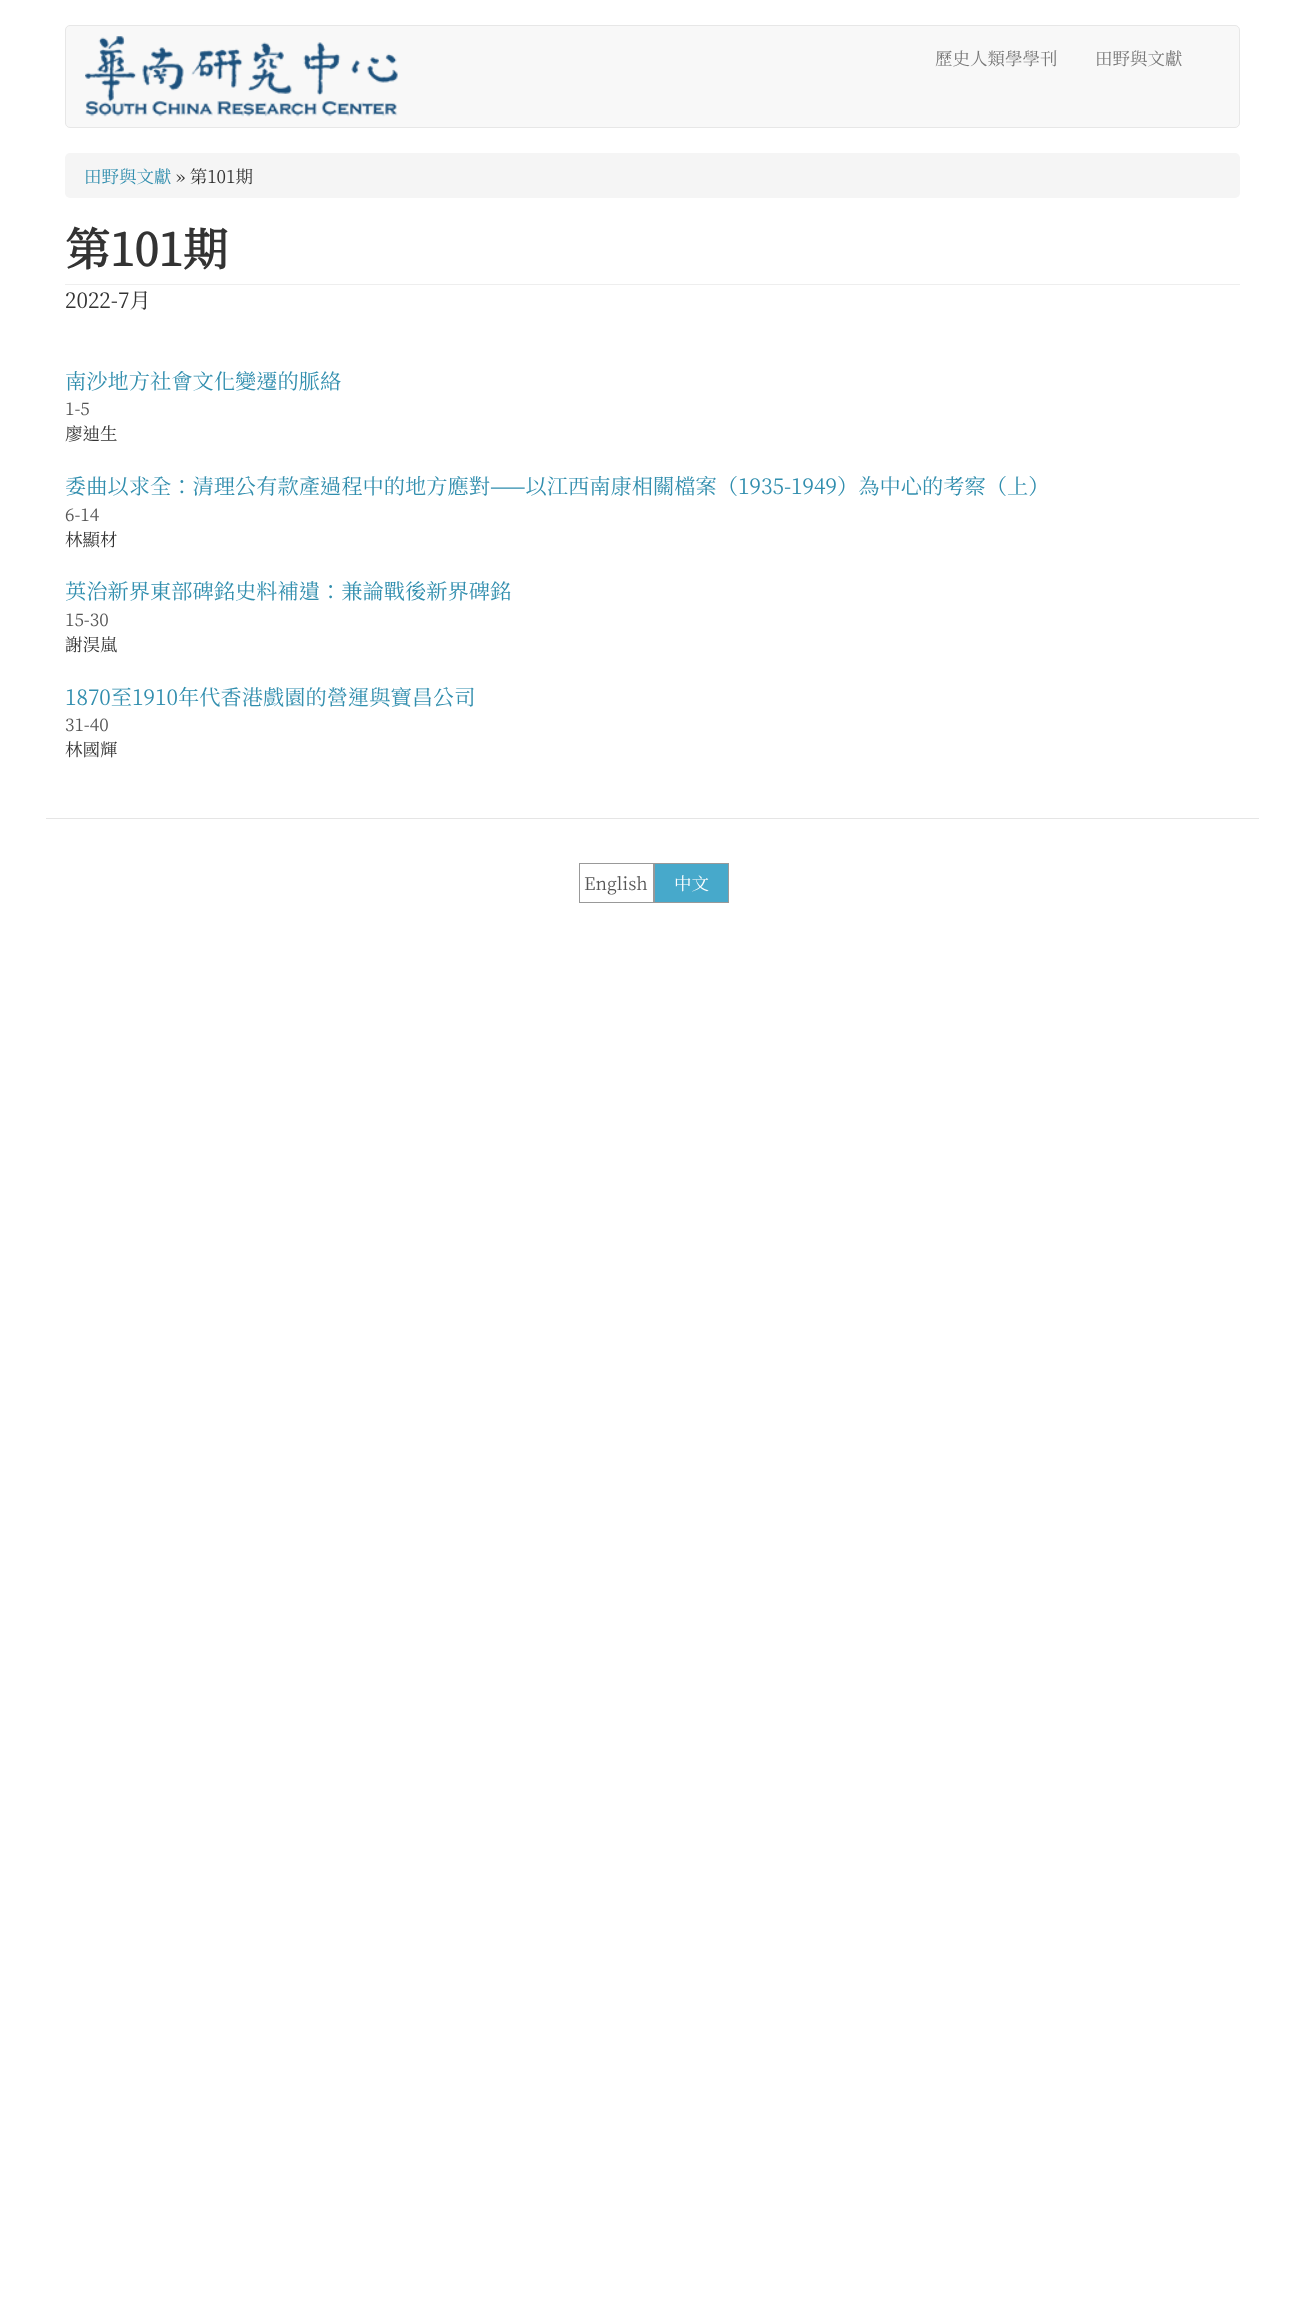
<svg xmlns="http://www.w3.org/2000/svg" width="1304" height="2305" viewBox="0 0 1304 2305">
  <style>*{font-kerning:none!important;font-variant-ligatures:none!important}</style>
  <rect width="100%" height="100%" fill="rgb(255,255,255)"/>
  <rect x="65.5" y="25.5" width="1174" height="102" rx="4.5" fill="rgb(248,248,248)" stroke="rgb(231,231,231)"/>
  <image x="85" y="36" width="313" height="81" href="pic1.png"/>
  <g font-family="Noto Serif CJK TC" font-size="17.5" fill="rgb(119,119,119)">
    <text x="935" y="65">歷史人類學學刊</text>
    <text x="1095" y="65">田野與文獻</text>
  </g>
  <rect x="65" y="153" width="1175" height="45" rx="5" fill="rgb(245,245,245)"/>
  <text x="84" y="183" font-family="Noto Serif CJK TC" font-size="17.5" fill="rgb(49,142,174)">田野與文獻</text>
  <text x="176" y="183" font-family="Noto Serif CJK TC" font-size="17.5" fill="rgb(51,51,51)">» 第101期</text>
  <rect x="65" y="284" width="1175" height="1" fill="rgb(238,238,238)"/>
  <text x="65" y="266" font-family="Noto Serif CJK TC" font-size="45" font-weight="bold" fill="rgb(51,51,51)">第101期</text>
  <text x="65" y="308" font-family="Noto Serif CJK TC" font-size="21.25" fill="rgb(51,51,51)">2022-7月</text>
  <text x="65" y="389" font-family="Noto Serif CJK TC" font-size="21.25" fill="rgb(49,142,174)">南沙地方社會文化變遷的脈絡</text>
  <text x="65" y="415" font-family="Noto Serif CJK TC" font-size="17.5" fill="rgb(85,85,85)">1-5</text>
  <text x="65" y="440" font-family="Noto Serif CJK TC" font-size="17.5" fill="rgb(51,51,51)">廖迪生</text>
  <text x="65" y="494" font-family="Noto Serif CJK TC" font-size="21.25" fill="rgb(49,142,174)">委曲以求全：清理公有款產過程中的地方應對——以江西南康相關檔案（1935-1949）為中心的考察（上）</text>
  <text x="65" y="521" font-family="Noto Serif CJK TC" font-size="17.5" fill="rgb(85,85,85)">6-14</text>
  <text x="65" y="546" font-family="Noto Serif CJK TC" font-size="17.5" fill="rgb(51,51,51)">林顯材</text>
  <text x="65" y="599" font-family="Noto Serif CJK TC" font-size="21.25" fill="rgb(49,142,174)">英治新界東部碑銘史料補遺：兼論戰後新界碑銘</text>
  <text x="65" y="626" font-family="Noto Serif CJK TC" font-size="17.5" fill="rgb(85,85,85)">15-30</text>
  <text x="65" y="651" font-family="Noto Serif CJK TC" font-size="17.5" fill="rgb(51,51,51)">謝淏嵐</text>
  <text x="65" y="705" font-family="Noto Serif CJK TC" font-size="21.25" fill="rgb(49,142,174)">1870至1910年代香港戲園的營運與寶昌公司</text>
  <text x="65" y="731" font-family="Noto Serif CJK TC" font-size="17.5" fill="rgb(85,85,85)">31-40</text>
  <text x="65" y="756" font-family="Noto Serif CJK TC" font-size="17.5" fill="rgb(51,51,51)">林國輝</text>
  <rect x="46" y="818" width="1213" height="1" fill="rgb(229,229,229)"/>
  <rect x="579.5" y="863.5" width="74" height="39" fill="none" stroke="rgb(153,153,153)"/>
  <text x="584" y="890" font-family="Noto Serif CJK TC" font-size="17.5" fill="rgb(85,85,85)">English</text>
  <rect x="654.5" y="863.5" width="74" height="39" fill="rgb(71,169,203)" stroke="rgb(153,153,153)"/>
  <text x="674" y="890" font-family="Noto Serif CJK TC" font-size="17.5" fill="rgb(255,255,255)">中文</text>
</svg>
